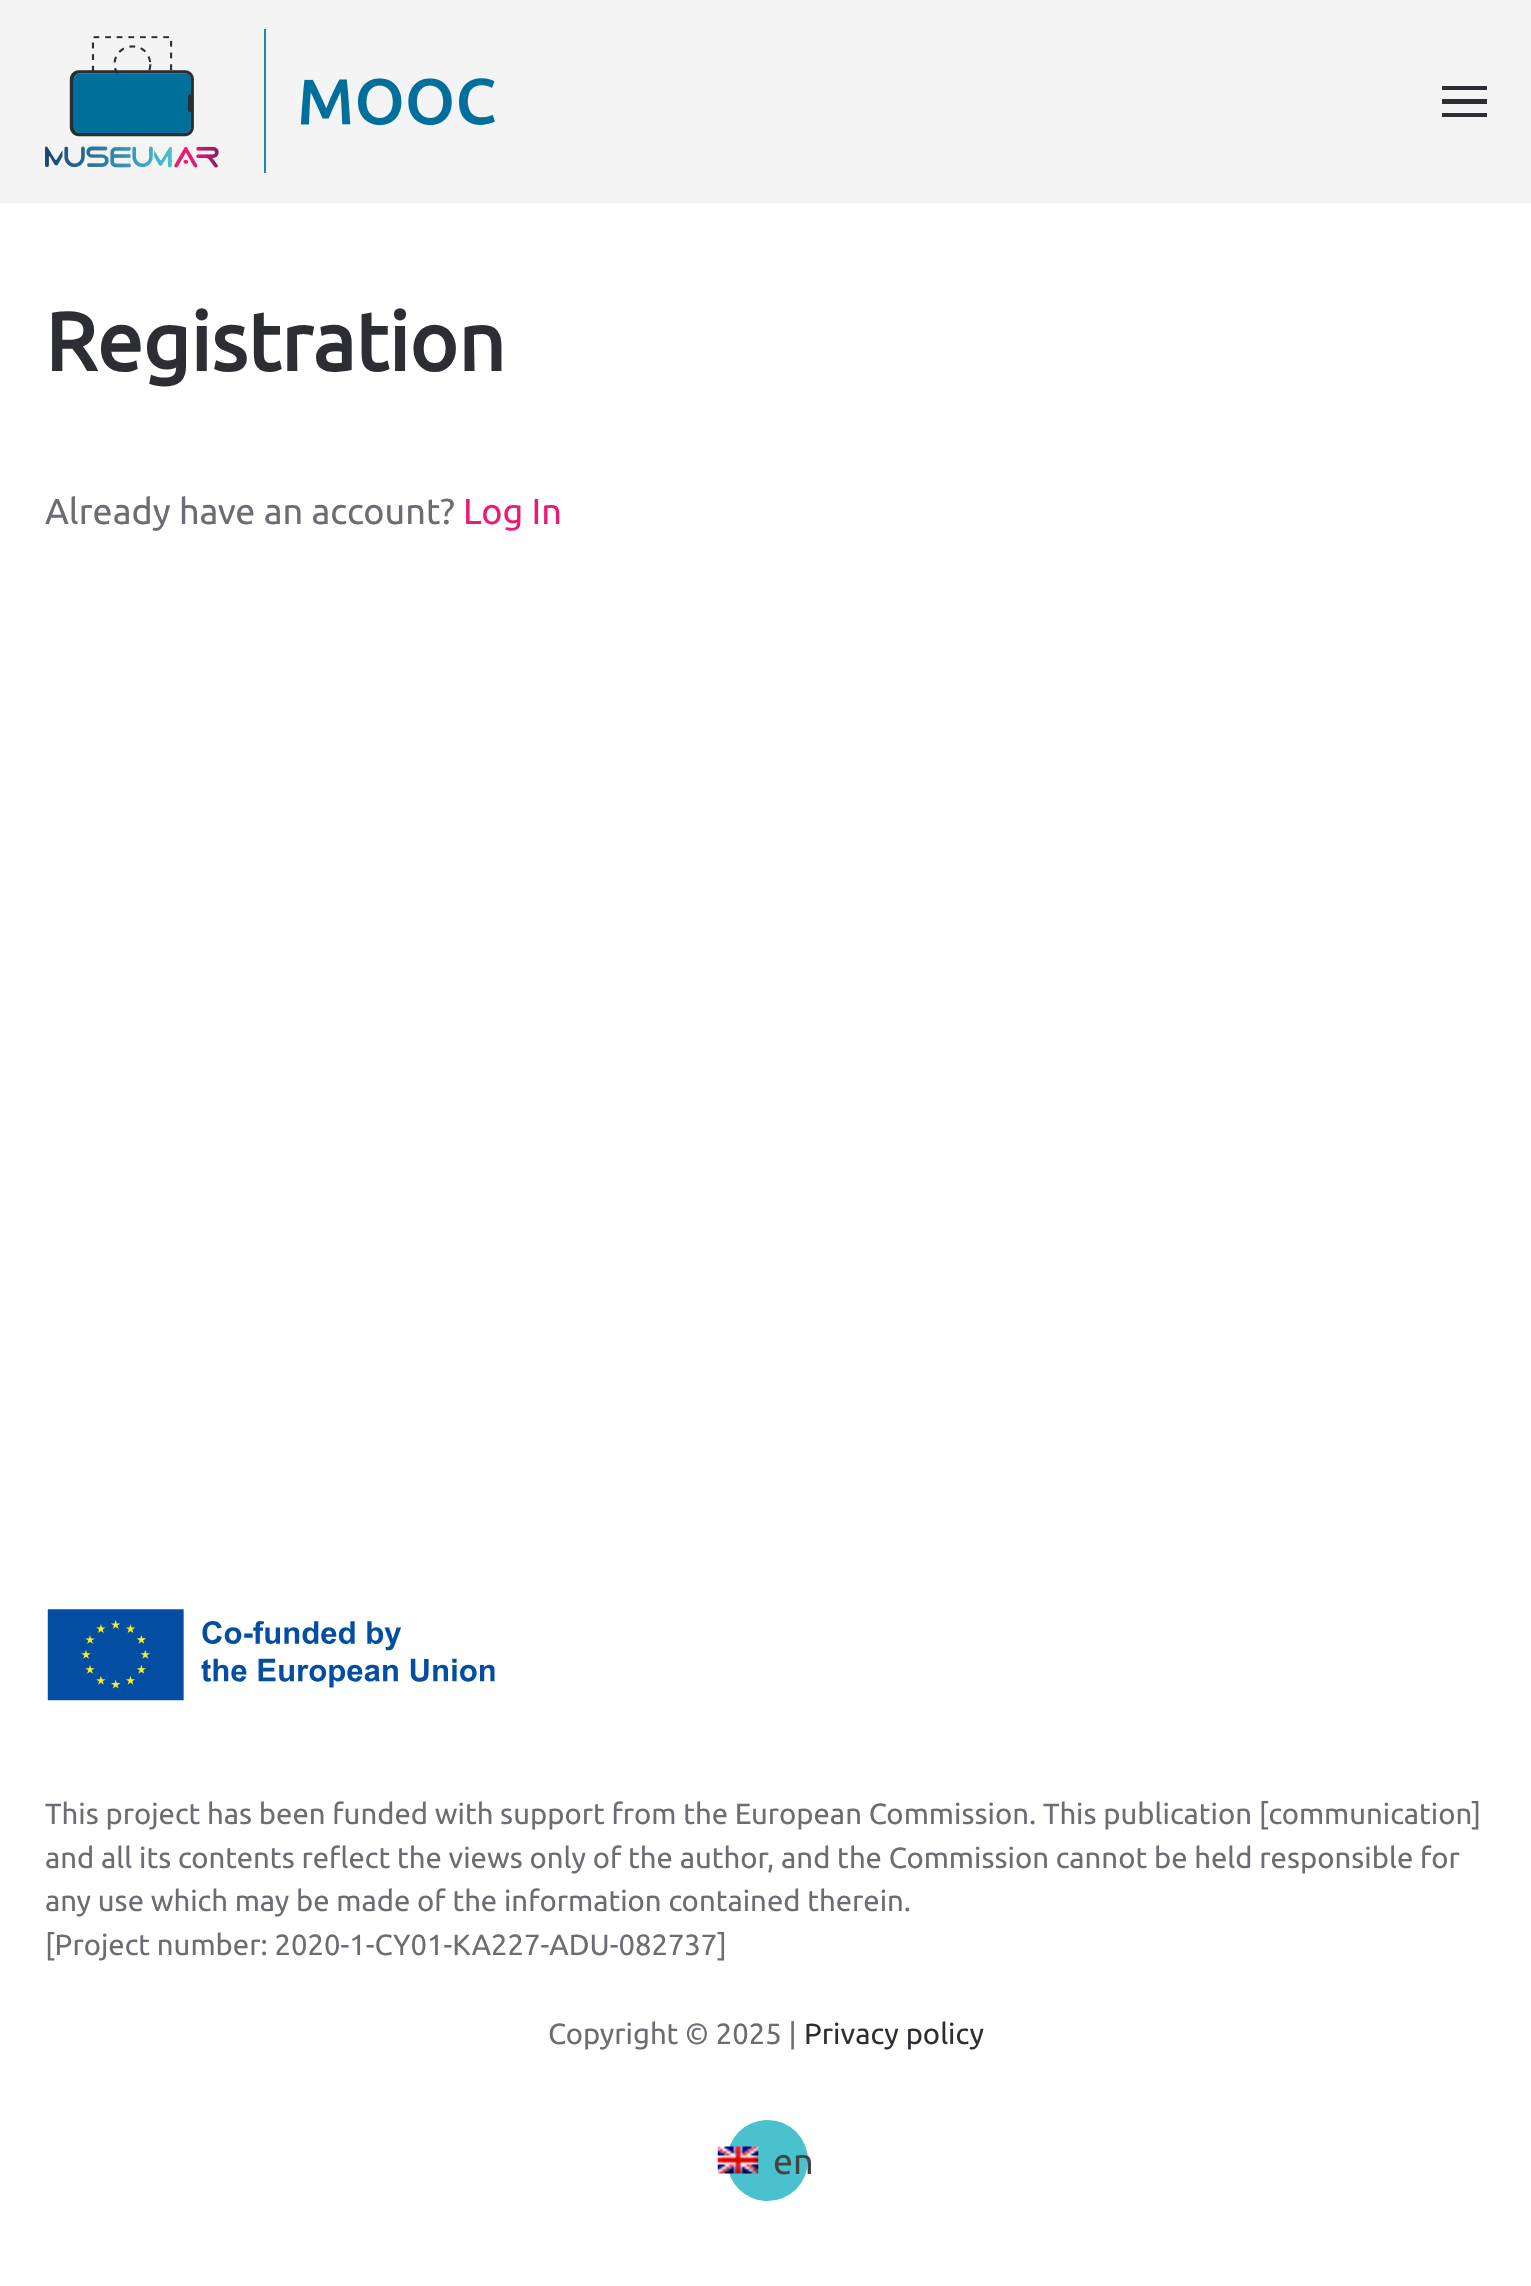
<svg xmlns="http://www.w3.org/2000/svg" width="1531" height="2286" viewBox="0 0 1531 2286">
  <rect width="100%" height="100%" fill="rgb(255,255,255)"/>
  <rect x="0" y="0" width="1531" height="203" fill="rgb(244,244,244)"/>
  <image x="45" y="29" width="450" height="144" href="pic1.png"/>
  <rect x="1442" y="86" width="45" height="4" fill="rgb(45,46,51)"/>
  <rect x="1442" y="99" width="45" height="5" fill="rgb(45,46,51)"/>
  <rect x="1442" y="113" width="45" height="4" fill="rgb(45,46,51)"/>
  <text x="45" y="371" font-family="Ubuntu" font-size="82.25" font-weight="bold" fill="rgb(45,46,51)">Registration</text>
  <text x="45" y="524" font-family="Ubuntu" font-size="36" fill="rgb(108,109,116)">Already have an account?</text>
  <text x="463" y="524" font-family="Ubuntu" font-size="36" fill="rgb(236,26,117)">Log In</text>
  <image x="47" y="1609" width="448" height="92" href="pic2.png"/>
  <g font-family="Ubuntu" font-size="29.25" fill="rgb(108,109,116)">
    <text>
      <tspan x="45" y="1824">This project has been funded with support from the European Commission. This publication [communication]</tspan>
      <tspan x="45" y="1868">and all its contents reflect the views only of the author, and the Commission cannot be held responsible for</tspan>
      <tspan x="45" y="1911">any use which may be made of the information contained therein.</tspan>
      <tspan x="45" y="1955">[Project number: 2020-1-CY01-KA227-ADU-082737]</tspan>
    </text>
    <text x="548" y="2044">Copyright © 2025 |</text>
  </g>
  <text x="804" y="2044" font-family="Ubuntu" font-size="29.25" fill="rgb(45,46,51)">Privacy policy</text>
  <circle cx="767.5" cy="2160.5" r="40.5" fill="rgb(74,194,206)"/>
  <image x="717" y="2146" width="42" height="28" href="pic3.png"/>
  <text x="773" y="2174" font-family="Ubuntu" font-size="36" fill="rgb(68,68,68)">en</text>
</svg>
